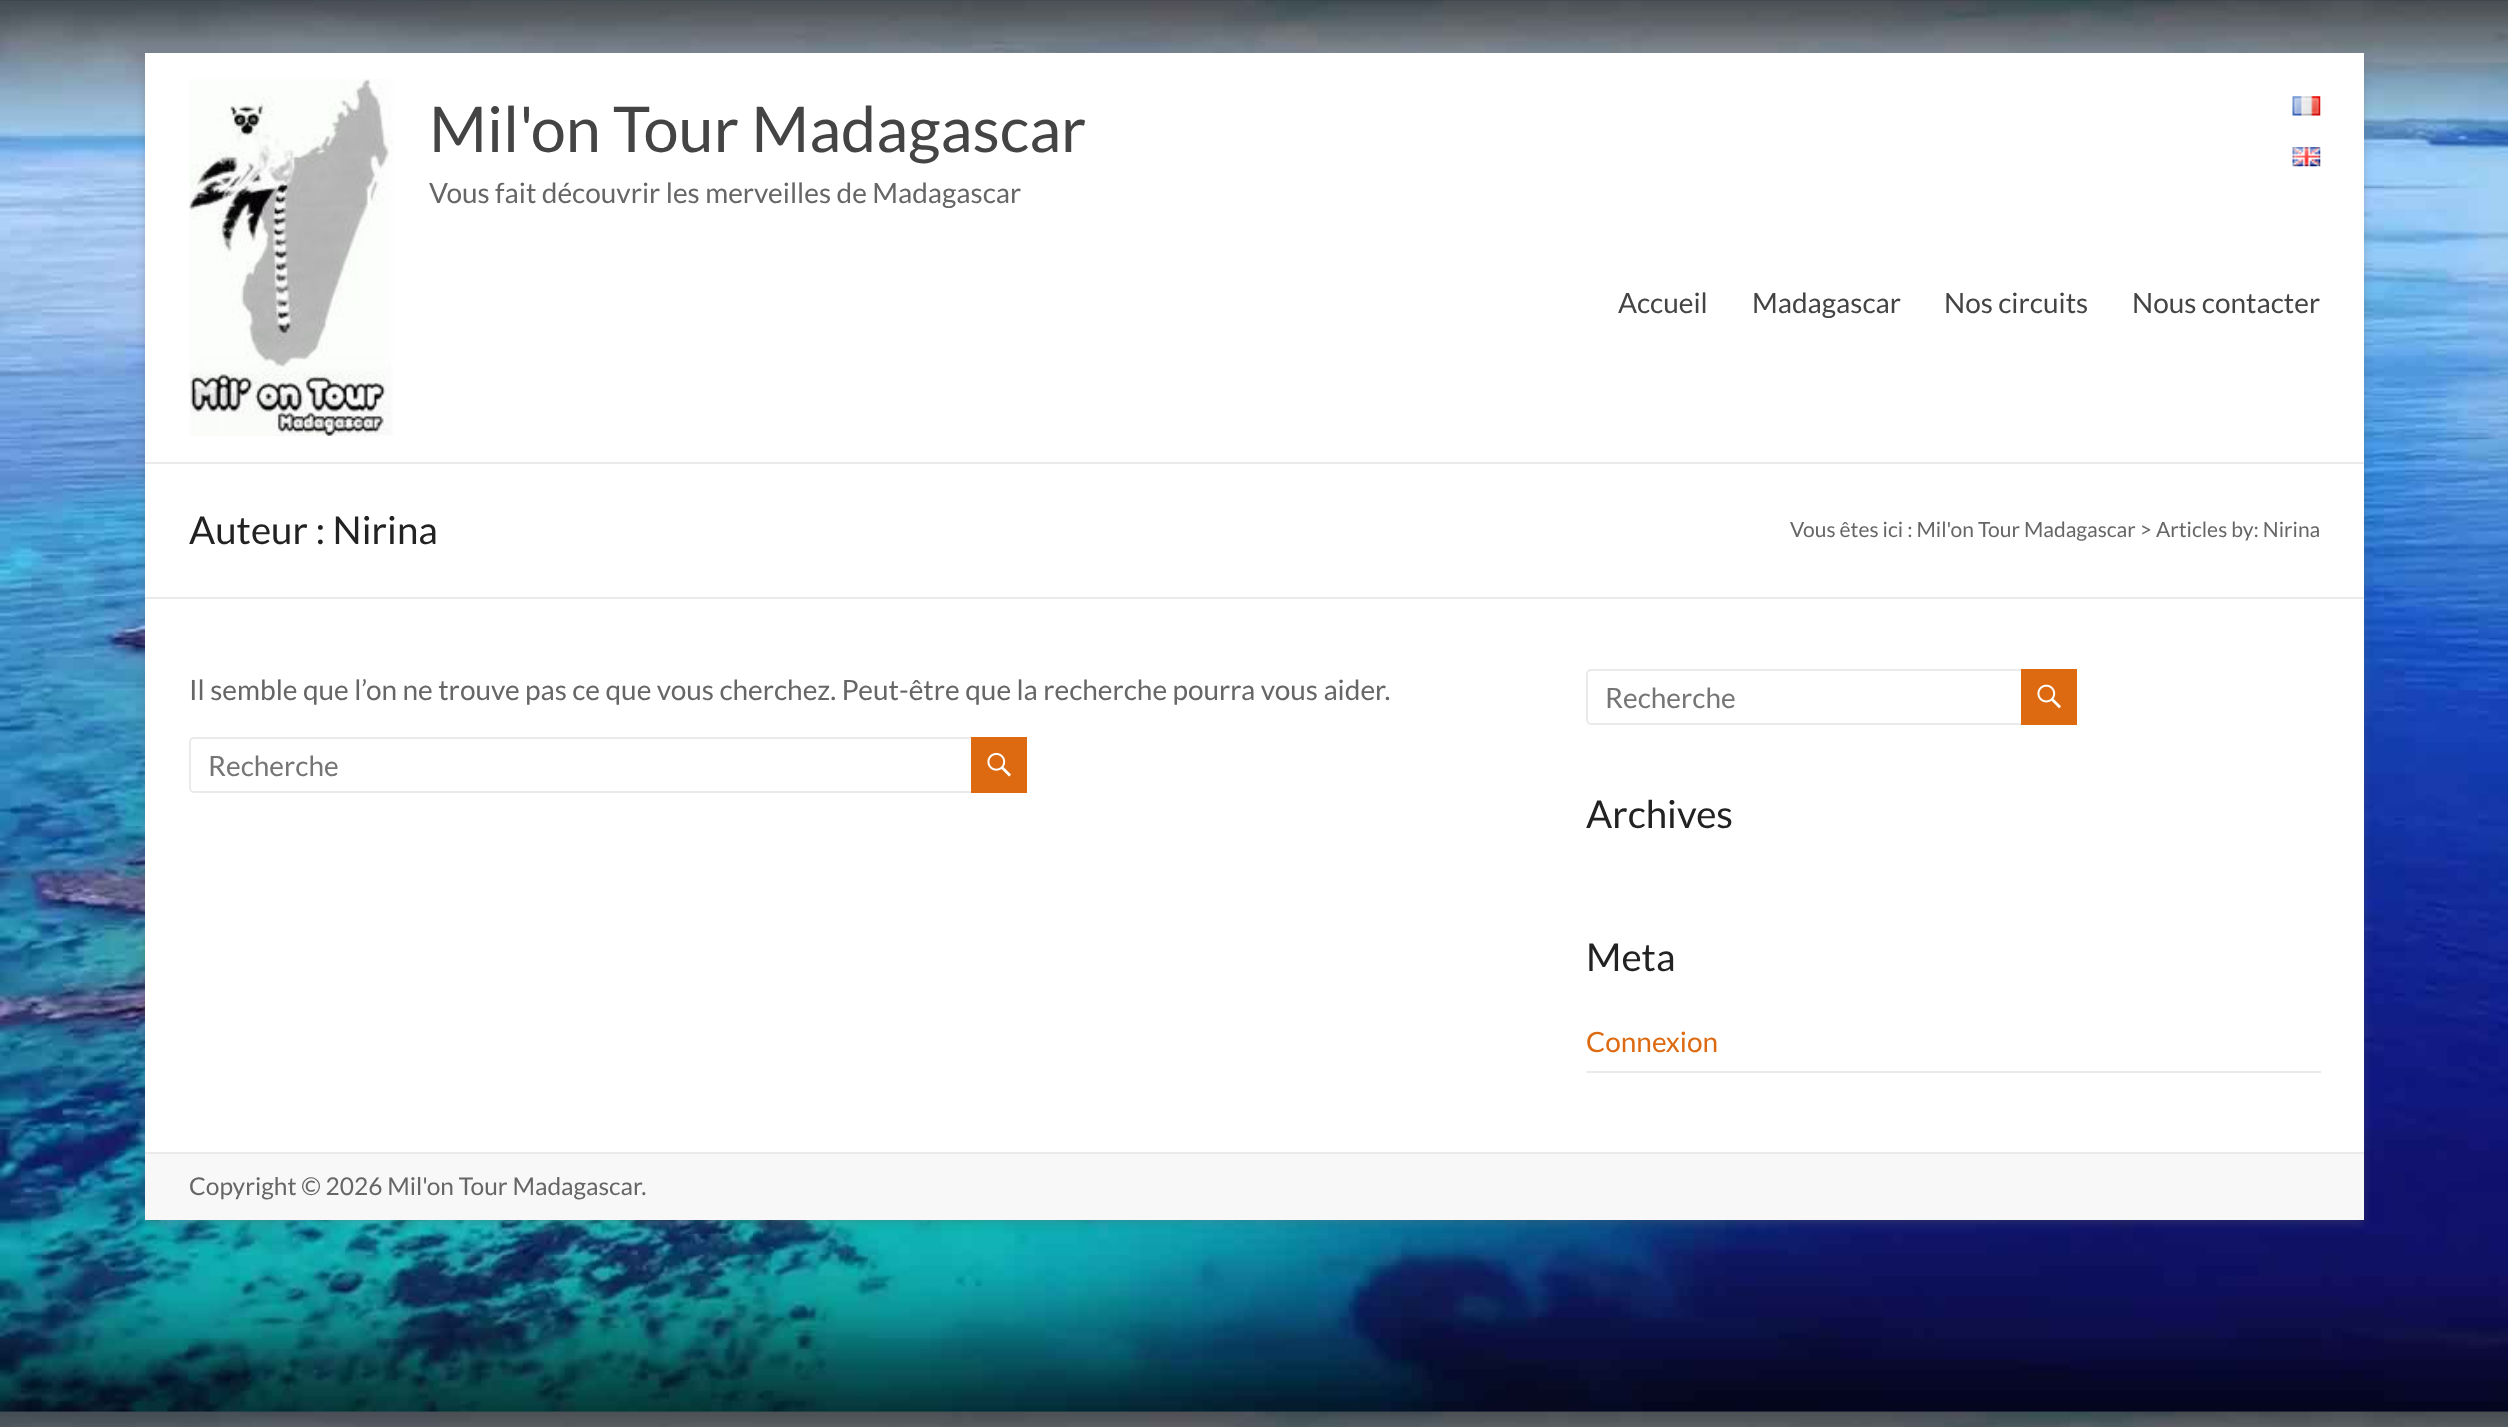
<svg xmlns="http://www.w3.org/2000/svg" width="2508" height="1427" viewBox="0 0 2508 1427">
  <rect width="100%" height="100%" fill="rgb(255,255,255)"/>
  <image x="0" y="0" width="2508" height="1427" href="pic1.png"/>
  <rect x="145" y="56" width="2219" height="1167" fill="rgba(100,100,100,0.3)" filter="blur(5px)"/>
  <rect x="145" y="53" width="2219" height="1099" fill="rgb(255,255,255)"/>
  <rect x="145" y="462" width="2219" height="2" fill="rgb(234,234,234)"/>
  <image x="189" y="79" width="205" height="357" href="pic2.png"/>
  <text x="429" y="152" font-family="Lato" font-size="63" fill="rgb(68,68,68)">Mil'on Tour Madagascar</text>
  <text x="429" y="203" font-family="Lato" font-size="28" fill="rgb(102,102,102)">Vous fait découvrir les merveilles de Madagascar</text>
  <image x="2292" y="96" width="29" height="20" href="pic3.png"/>
  <image x="2292" y="147" width="29" height="20" href="pic4.png"/>
  <g font-family="Lato" font-size="28" fill="rgb(68,68,68)">
    <text x="1618" y="313">Accueil</text>
    <text x="1752" y="313">Madagascar</text>
    <text x="1944" y="313">Nos circuits</text>
    <text x="2132" y="313">Nous contacter</text>
  </g>
  <rect x="145" y="597" width="2219" height="2" fill="rgb(234,234,234)"/>
  <text x="189" y="544" font-family="Lato" font-size="38.5" fill="rgb(34,34,34)">Auteur : Nirina</text>
  <text x="1790" y="537" font-family="Lato" font-size="21" fill="rgb(102,102,102)">Vous êtes ici : Mil'on Tour Madagascar &gt; Articles by: Nirina</text>
  <text x="189" y="700" font-family="Lato" font-size="28" fill="rgb(102,102,102)">Il semble que l’on ne trouve pas ce que vous cherchez. Peut-être que la recherche pourra vous aider.</text>
  <rect x="190" y="738" width="786" height="54" rx="4" fill="none" stroke="rgb(234,234,234)" stroke-width="2"/>
  <text x="208" y="776" font-family="Lato" font-size="28" fill="rgb(117,117,117)">Recherche</text>
  <rect x="971" y="737" width="56" height="56" fill="rgb(221,106,17)"/>
  <image x="987" y="752" width="24" height="25" href="pic5.png"/>
  <rect x="1587" y="670" width="439" height="54" rx="4" fill="none" stroke="rgb(234,234,234)" stroke-width="2"/>
  <text x="1605" y="708" font-family="Lato" font-size="28" fill="rgb(117,117,117)">Recherche</text>
  <rect x="2021" y="669" width="56" height="56" fill="rgb(221,106,17)"/>
  <image x="2037" y="684" width="24" height="25" href="pic6.png"/>
  <g font-family="Lato" font-size="38.5" fill="rgb(34,34,34)">
    <text x="1586" y="828">Archives</text>
    <text x="1586" y="971">Meta</text>
  </g>
  <rect x="1586" y="1071" width="735" height="2" fill="rgb(234,234,234)"/>
  <text x="1586" y="1052" font-family="Lato" font-size="28" fill="rgb(221,106,17)">Connexion</text>
  <rect x="145" y="1154" width="2219" height="66" fill="rgb(248,248,248)"/>
  <rect x="145" y="1152" width="2219" height="2" fill="rgb(234,234,234)"/>
  <text x="189" y="1195" font-family="Lato" font-size="24.5" fill="rgb(102,102,102)">Copyright © 2026 Mil'on Tour Madagascar.</text>
</svg>
